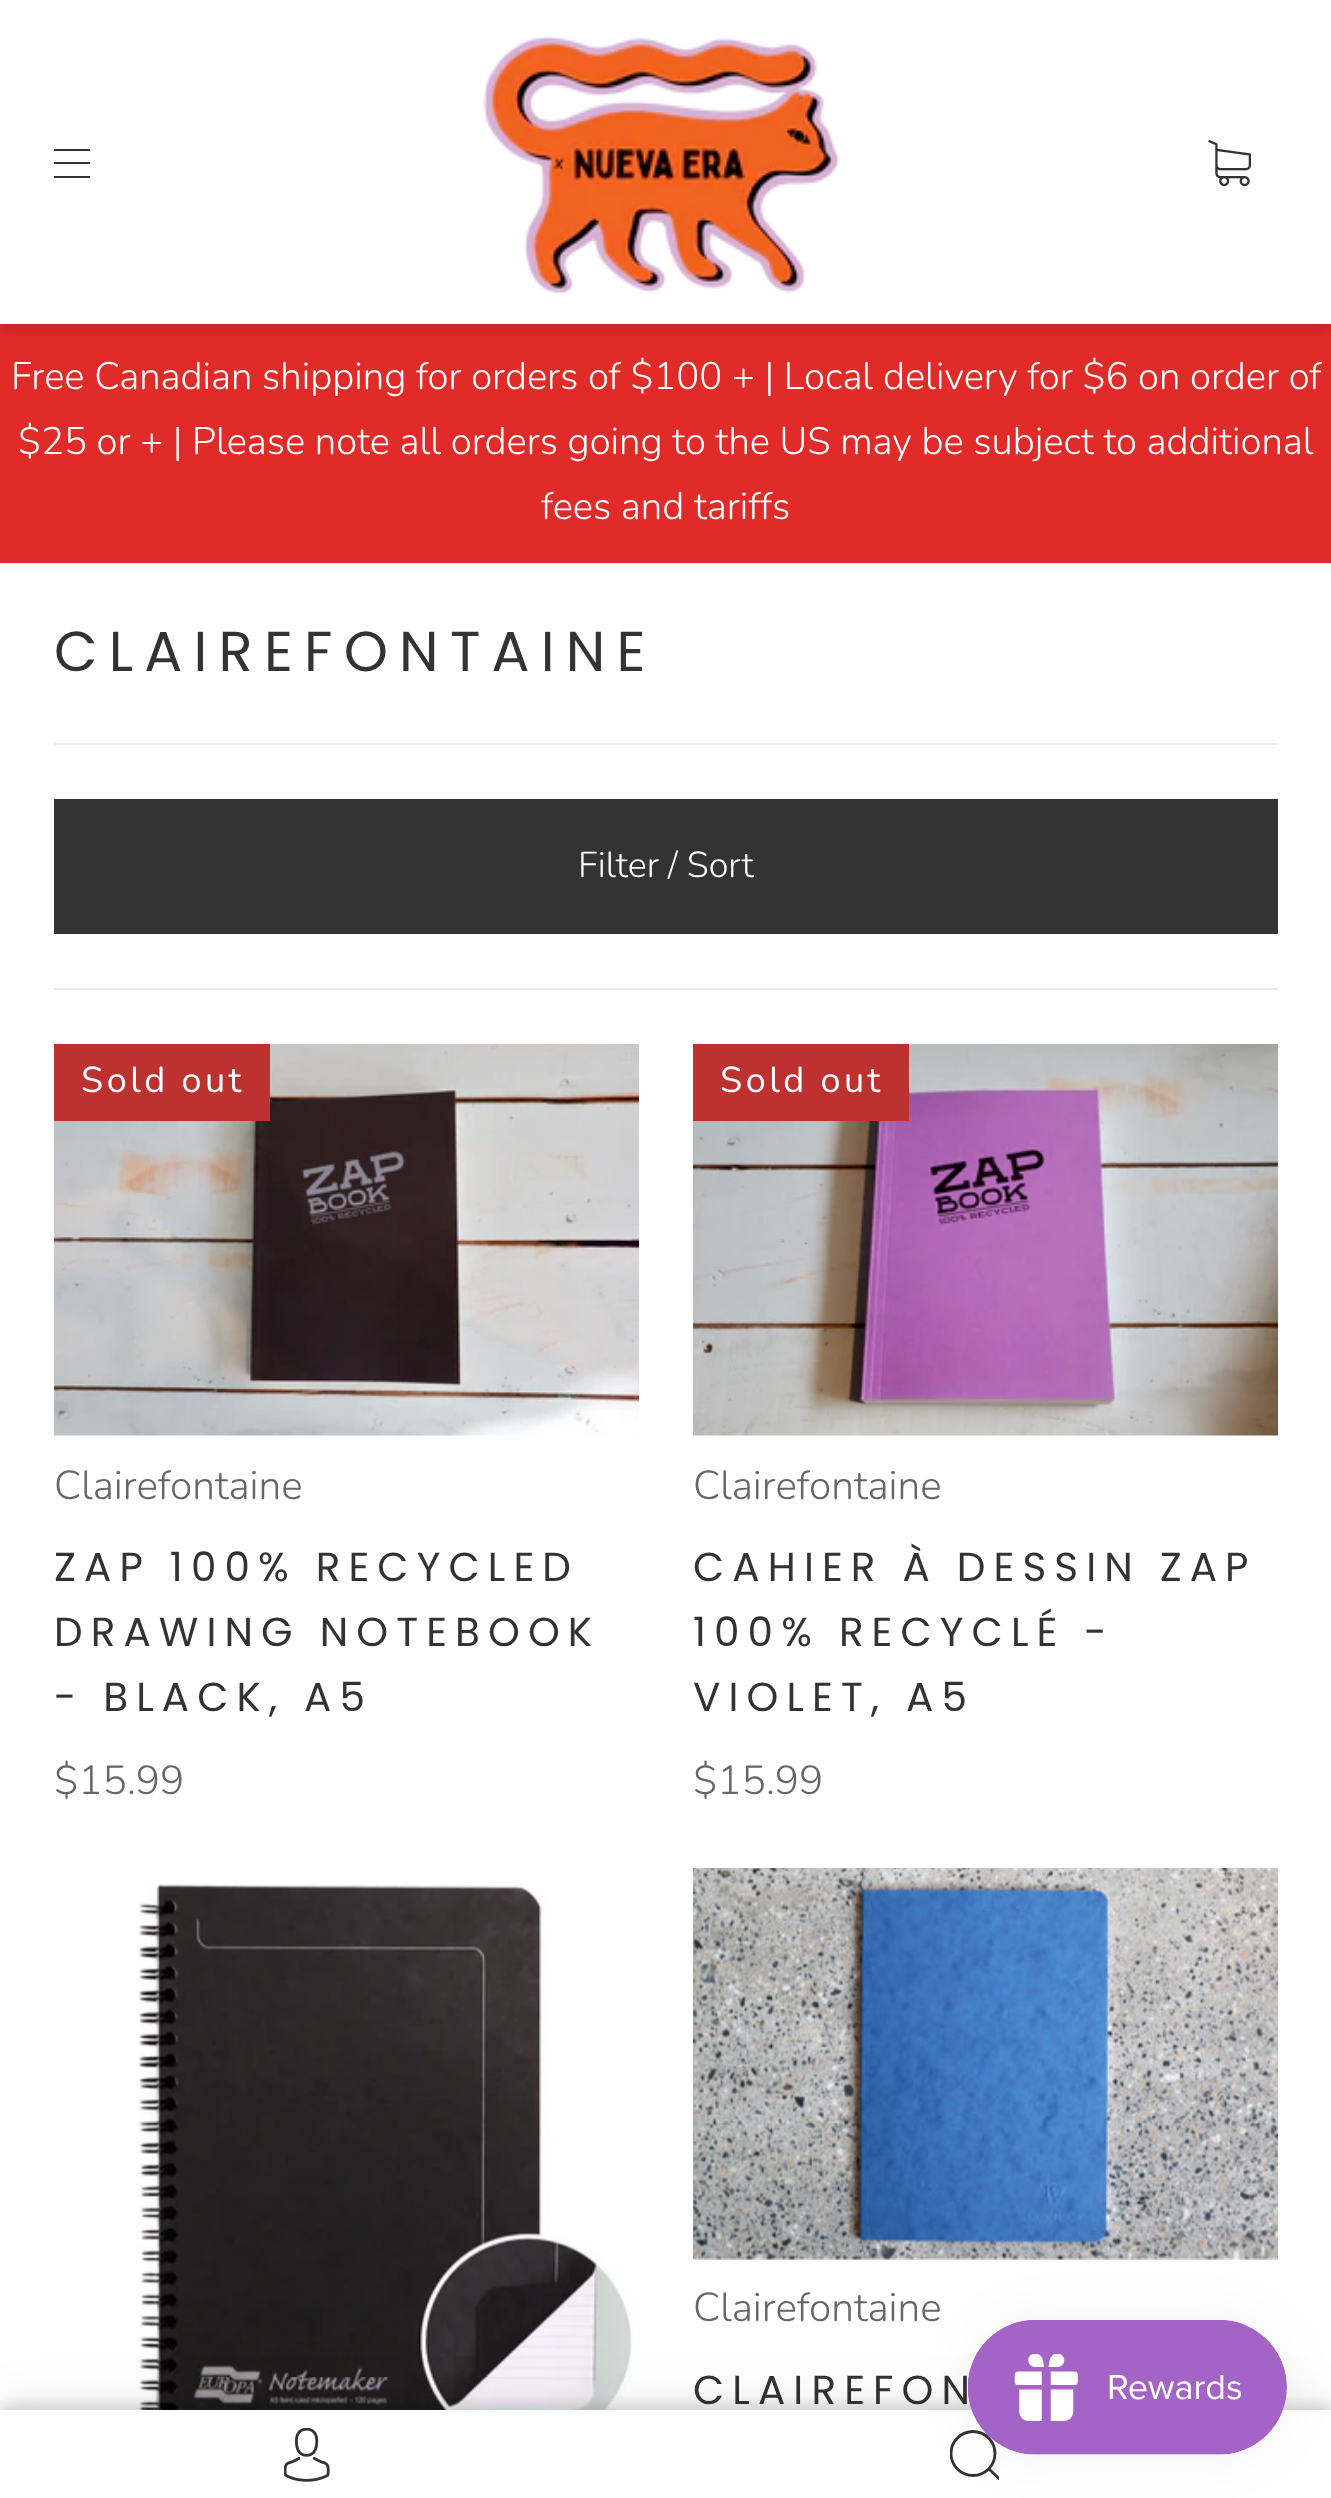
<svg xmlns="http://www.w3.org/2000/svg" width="1331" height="2498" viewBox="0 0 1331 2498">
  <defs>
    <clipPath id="clip1"><rect x="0" y="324" width="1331" height="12"/></clipPath>
    <clipPath id="clip2"><rect x="950" y="2430" width="49" height="50"/></clipPath>
  </defs>
  <rect width="100%" height="100%" fill="rgb(255,255,255)"/>
  <rect x="0" y="324" width="1331" height="239" fill="rgb(225,43,41)"/>
  <g clip-path="url(#clip1)">
    <rect x="0" y="7" width="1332" height="324" fill="rgba(0,0,0,0.12)" filter="blur(5.5px)"/>
  </g>
  <rect x="54" y="149" width="36" height="2" fill="rgb(51,51,51)"/>
  <rect x="54" y="162" width="36" height="2" fill="rgb(51,51,51)"/>
  <rect x="54" y="176" width="36" height="2" fill="rgb(51,51,51)"/>
  <image x="483" y="35" width="357" height="259" href="pic1.png"/>
  <image x="1208" y="140" width="43" height="47" href="pic2.png"/>
  <g font-family="Nunito" font-size="38.25" font-weight="300" fill="rgb(255,255,255)">
    <text x="11" y="389">Free Canadian shipping for orders of $100 + | Local delivery for $6 on order of</text>
    <text x="18" y="454">$25 or + | Please note all orders going to the US may be subject to additional</text>
    <text x="541" y="519">fees and tariffs</text>
  </g>
  <rect x="54" y="743" width="1224" height="2" fill="rgb(235,235,235)"/>
  <text x="54" y="671" font-family="Poppins" font-size="56.25" letter-spacing="11.25" fill="rgb(51,51,51)">CLAIREFONTAINE</text>
  <rect x="54" y="988" width="1224" height="2" fill="rgb(235,235,235)"/>
  <rect x="54" y="799" width="1224" height="135" fill="rgb(51,51,51)"/>
  <text x="578" y="877" font-family="Nunito" font-size="36" font-weight="300" fill="rgb(255,255,255)">Filter / Sort</text>
  <image x="54" y="1044" width="585" height="392" href="pic3.png"/>
  <rect x="54" y="1044" width="216" height="77" fill="rgb(190,49,49)"/>
  <text x="81" y="1092" font-family="Nunito" font-size="36" letter-spacing="3.5" fill="rgb(255,255,255)">Sold out</text>
  <text x="54" y="1499" font-family="Nunito" font-size="40.5" font-weight="300" fill="rgb(102,102,102)">Clairefontaine</text>
  <g font-family="Poppins" font-size="40.5" letter-spacing="8.1" fill="rgb(51,51,51)">
    <text>
      <tspan x="54" y="1581">ZAP 100% RECYCLED</tspan>
      <tspan x="54" y="1646">DRAWING NOTEBOOK</tspan>
      <tspan x="54" y="1711">- BLACK, A5</tspan>
    </text>
  </g>
  <text x="54" y="1794" font-family="Nunito" font-size="40.5" font-weight="300" fill="rgb(102,102,102)">$15.99</text>
  <image x="693" y="1044" width="585" height="392" href="pic4.png"/>
  <rect x="693" y="1044" width="216" height="77" fill="rgb(190,49,49)"/>
  <text x="720" y="1092" font-family="Nunito" font-size="36" letter-spacing="3.5" fill="rgb(255,255,255)">Sold out</text>
  <text x="693" y="1499" font-family="Nunito" font-size="40.5" font-weight="300" fill="rgb(102,102,102)">Clairefontaine</text>
  <g font-family="Poppins" font-size="40.5" letter-spacing="8.1" fill="rgb(51,51,51)">
    <text>
      <tspan x="693" y="1581">CAHIER À DESSIN ZAP</tspan>
      <tspan x="693" y="1646">100% RECYCLÉ -</tspan>
      <tspan x="693" y="1711">VIOLET, A5</tspan>
    </text>
  </g>
  <text x="693" y="1794" font-family="Nunito" font-size="40.5" font-weight="300" fill="rgb(102,102,102)">$15.99</text>
  <image x="137" y="1882" width="496" height="528" href="pic5.png"/>
  <image x="693" y="1868" width="585" height="392" href="pic6.png"/>
  <text x="693" y="2321" font-family="Nunito" font-size="40.5" font-weight="300" fill="rgb(102,102,102)">Clairefontaine</text>
  <text x="693" y="2404" font-family="Poppins" font-size="40.5" letter-spacing="8.1" fill="rgb(51,51,51)">CLAIREFON</text>
  <rect x="0" y="2396" width="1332" height="90" fill="rgba(0,0,0,0.06)" filter="blur(22.5px)"/>
  <rect x="0" y="2403" width="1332" height="90" fill="rgba(0,0,0,0.12)" filter="blur(5.5px)"/>
  <rect x="0" y="2410" width="1331" height="88" fill="rgb(255,255,255)"/>
  <image x="284" y="2428" width="46" height="54" href="pic7.png"/>
  <g clip-path="url(#clip2)">
    <circle cx="973" cy="2453.5" r="22" fill="none" stroke="rgb(51,51,51)" stroke-width="2.8"/>
    <path d="M988.5 2468.5L1004.5 2484" fill="none" stroke="rgb(51,51,51)" stroke-width="2.8"/>
  </g>
  <rect x="968" y="2320" width="319" height="135" rx="67.5" fill="rgba(0,0,0,0.05)" filter="blur(28px)"/>
  <image x="967" y="2320" width="320" height="135" href="pic8.png"/>
</svg>
